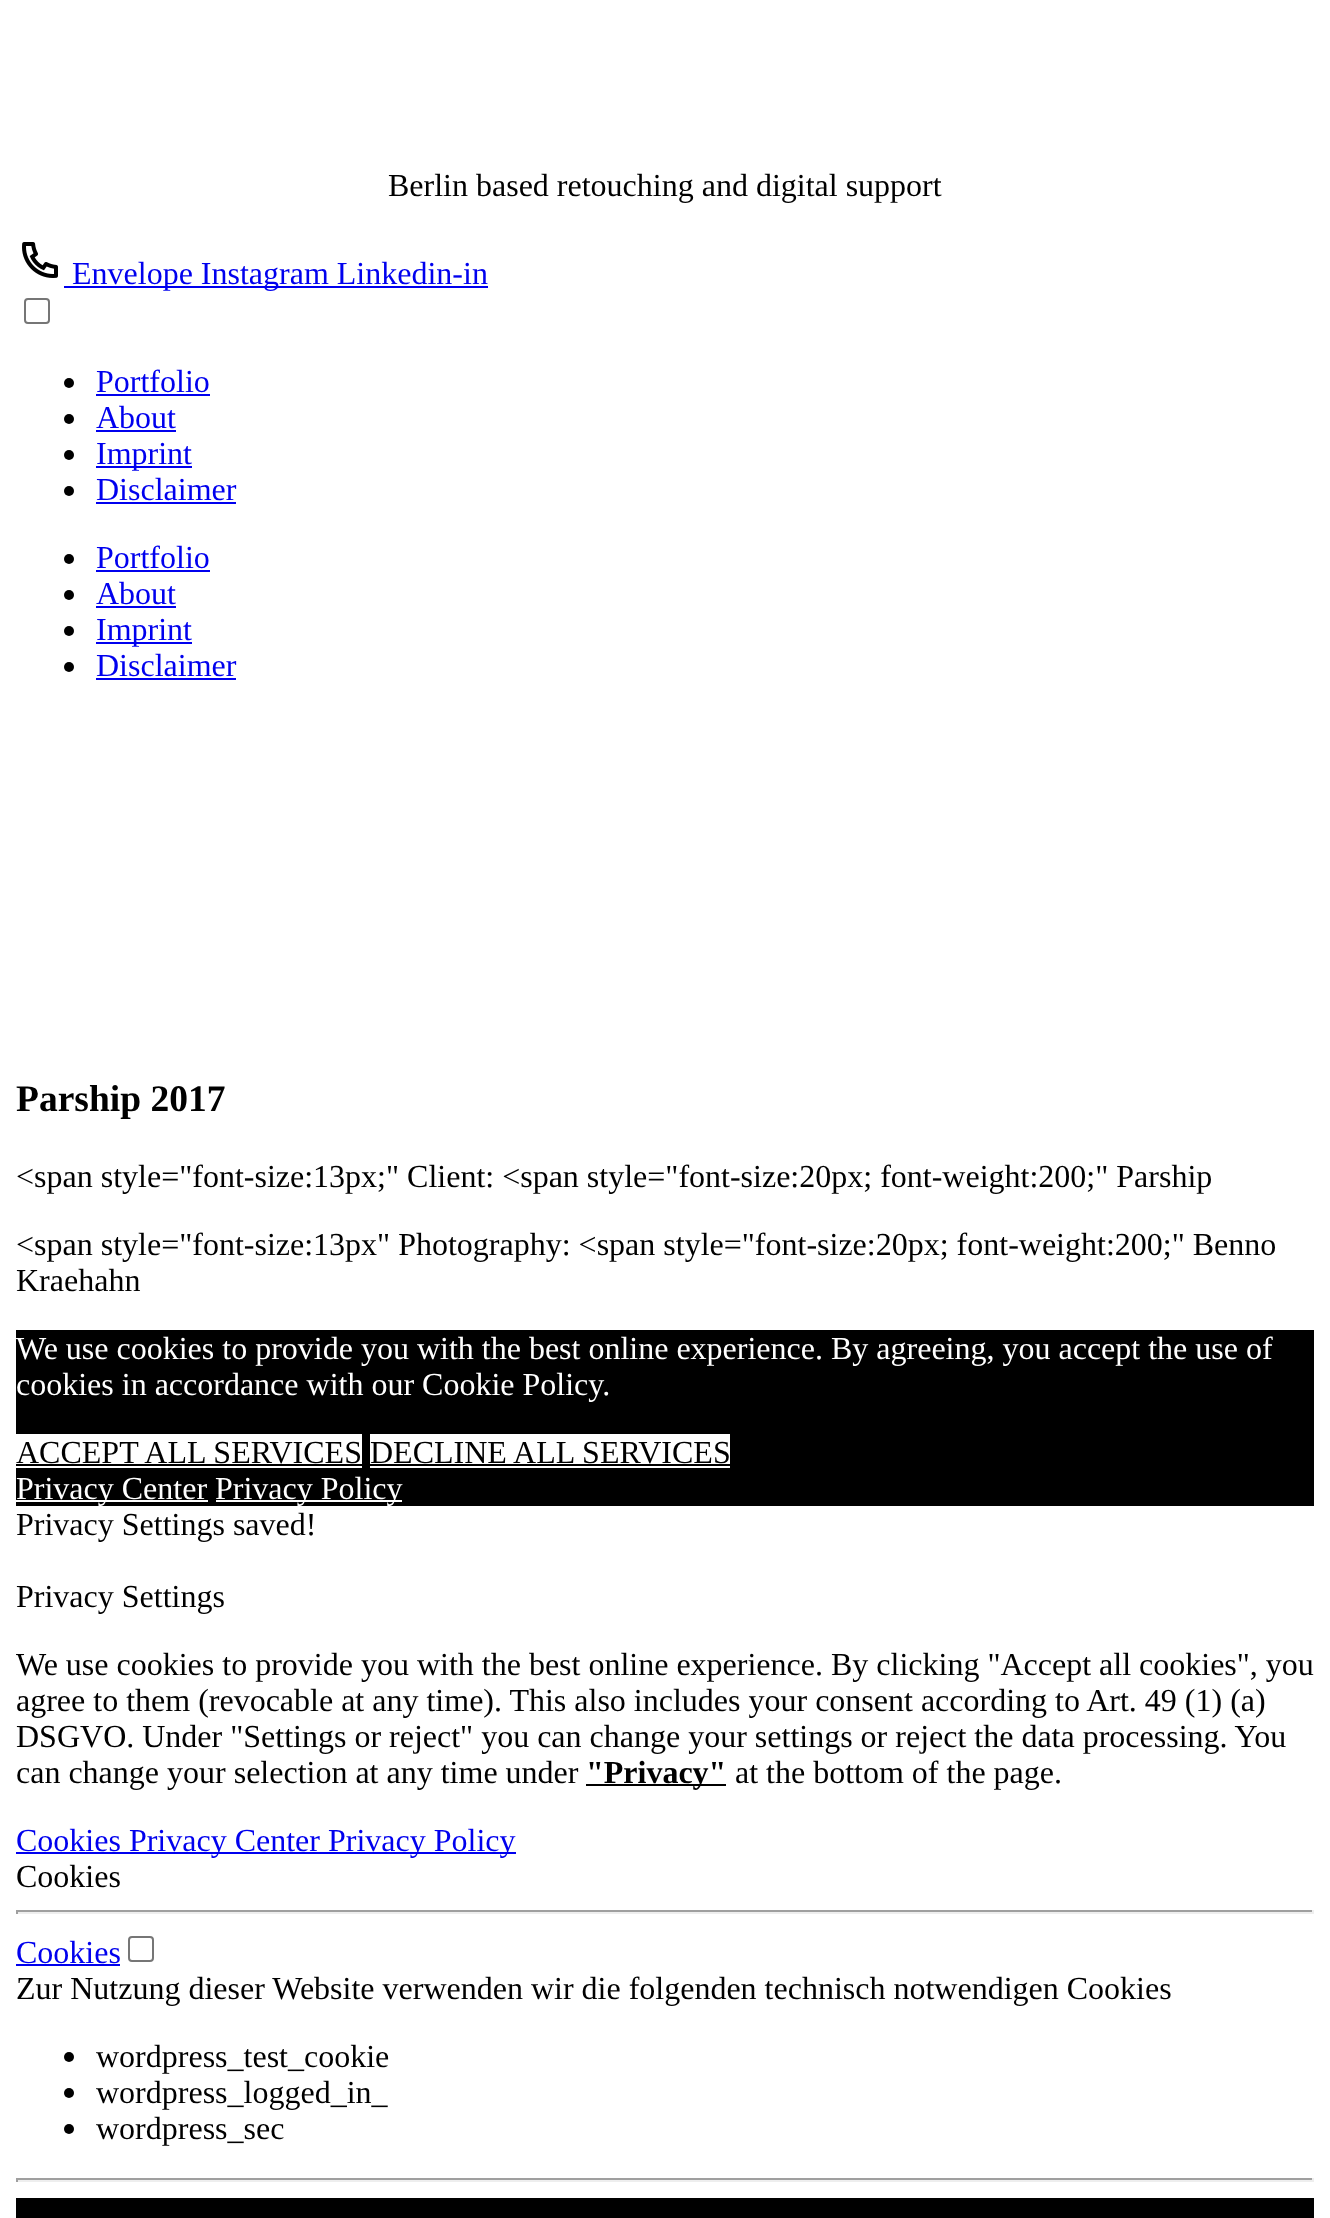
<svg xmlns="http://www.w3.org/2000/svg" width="1330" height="2218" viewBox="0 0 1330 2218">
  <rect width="100%" height="100%" fill="rgb(255,255,255)"/>
  <text x="388" y="196" font-family="Liberation Serif" font-size="32" fill="rgb(0,0,0)">Berlin based retouching and digital support</text>
  <image x="22" y="242" width="36" height="36" href="pic1.png"/>
  <rect x="64" y="286" width="264" height="2" fill="rgb(0,0,238)"/>
  <text x="72" y="284" font-family="Liberation Serif" font-size="32" fill="rgb(0,0,238)">Envelope Instagram Linkedin-in</text>
  <rect x="328" y="286" width="160" height="2" fill="rgb(0,0,238)"/>
  <rect x="25" y="299" width="24" height="24" rx="3" fill="none" stroke="rgb(118,118,118)" stroke-width="2"/>
  <circle cx="69" cy="383" r="5" fill="rgb(0,0,0)"/>
  <text x="96" y="392" font-family="Liberation Serif" font-size="32" fill="rgb(0,0,238)">Portfolio</text>
  <rect x="96" y="394" width="114" height="2" fill="rgb(0,0,238)"/>
  <circle cx="69" cy="419" r="5" fill="rgb(0,0,0)"/>
  <text x="96" y="428" font-family="Liberation Serif" font-size="32" fill="rgb(0,0,238)">About</text>
  <rect x="96" y="430" width="80" height="2" fill="rgb(0,0,238)"/>
  <circle cx="69" cy="455" r="5" fill="rgb(0,0,0)"/>
  <rect x="96" y="466" width="96" height="2" fill="rgb(0,0,238)"/>
  <text x="96" y="464" font-family="Liberation Serif" font-size="32" fill="rgb(0,0,238)">Imprint</text>
  <circle cx="69" cy="491" r="5" fill="rgb(0,0,0)"/>
  <text x="96" y="500" font-family="Liberation Serif" font-size="32" fill="rgb(0,0,238)">Disclaimer</text>
  <rect x="96" y="502" width="140" height="2" fill="rgb(0,0,238)"/>
  <circle cx="69" cy="559" r="5" fill="rgb(0,0,0)"/>
  <text x="96" y="568" font-family="Liberation Serif" font-size="32" fill="rgb(0,0,238)">Portfolio</text>
  <rect x="96" y="570" width="114" height="2" fill="rgb(0,0,238)"/>
  <circle cx="69" cy="595" r="5" fill="rgb(0,0,0)"/>
  <text x="96" y="604" font-family="Liberation Serif" font-size="32" fill="rgb(0,0,238)">About</text>
  <rect x="96" y="606" width="80" height="2" fill="rgb(0,0,238)"/>
  <circle cx="69" cy="631" r="5" fill="rgb(0,0,0)"/>
  <rect x="96" y="642" width="96" height="2" fill="rgb(0,0,238)"/>
  <text x="96" y="640" font-family="Liberation Serif" font-size="32" fill="rgb(0,0,238)">Imprint</text>
  <circle cx="69" cy="667" r="5" fill="rgb(0,0,0)"/>
  <text x="96" y="676" font-family="Liberation Serif" font-size="32" fill="rgb(0,0,238)">Disclaimer</text>
  <rect x="96" y="678" width="140" height="2" fill="rgb(0,0,238)"/>
  <text x="16" y="1111" font-family="Liberation Serif" font-size="37.5" font-weight="bold" fill="rgb(0,0,0)">Parship 2017</text>
  <g font-family="Liberation Serif" font-size="32" fill="rgb(0,0,0)">
    <text x="16" y="1187">&lt;span style="font-size:13px;" Client: &lt;span style="font-size:20px; font-weight:200;" Parship</text>
    <text>
      <tspan x="16" y="1255">&lt;span style="font-size:13px" Photography: &lt;span style="font-size:20px; font-weight:200;" Benno</tspan>
      <tspan x="16" y="1291">Kraehahn</tspan>
    </text>
  </g>
  <rect x="16" y="1330" width="1298" height="176" fill="rgb(0,0,0)"/>
  <g font-family="Liberation Serif" font-size="32" fill="rgb(255,255,255)">
    <text>
      <tspan x="16" y="1359">We use cookies to provide you with the best online experience. By agreeing, you accept the use of</tspan>
      <tspan x="16" y="1395">cookies in accordance with our Cookie Policy.</tspan>
    </text>
  </g>
  <rect x="16" y="1434" width="346" height="34" fill="rgb(255,255,255)"/>
  <text x="16" y="1463" font-family="Liberation Serif" font-size="32" fill="rgb(0,0,0)">ACCEPT ALL SERVICES</text>
  <rect x="16" y="1464" width="346" height="2" fill="rgb(0,0,0)"/>
  <rect x="370" y="1434" width="360" height="34" fill="rgb(255,255,255)"/>
  <text x="370" y="1463" font-family="Liberation Serif" font-size="32" fill="rgb(0,0,0)">DECLINE ALL SERVICES</text>
  <rect x="370" y="1464" width="360" height="2" fill="rgb(0,0,0)"/>
  <rect x="16" y="1500" width="192" height="2" fill="rgb(255,255,255)"/>
  <text x="16" y="1499" font-family="Liberation Serif" font-size="32" fill="rgb(255,255,255)">Privacy Center</text>
  <rect x="216" y="1500" width="186" height="2" fill="rgb(255,255,255)"/>
  <text x="215" y="1499" font-family="Liberation Serif" font-size="32" fill="rgb(255,255,255)">Privacy Policy</text>
  <g font-family="Liberation Serif" font-size="32" fill="rgb(0,0,0)">
    <text x="16" y="1535">Privacy Settings saved!</text>
    <text x="16" y="1607">Privacy Settings</text>
    <text>
      <tspan x="16" y="1675">We use cookies to provide you with the best online experience. By clicking "Accept all cookies", you</tspan>
      <tspan x="16" y="1711">agree to them (revocable at any time). This also includes your consent according to Art. 49 (1) (a)</tspan>
      <tspan x="16" y="1747">DSGVO. Under "Settings or reject" you can change your settings or reject the data processing. You</tspan>
      <tspan x="16" y="1783">can change your selection at any time under</tspan>
    </text>
  </g>
  <rect x="586" y="1784" width="140" height="2" fill="rgb(0,0,0)"/>
  <text x="586" y="1783" font-family="Liberation Serif" font-size="32" font-weight="bold" fill="rgb(0,0,0)">"Privacy"</text>
  <text x="735" y="1783" font-family="Liberation Serif" font-size="32" fill="rgb(0,0,0)">at the bottom of the page.</text>
  <rect x="16" y="1852" width="500" height="2" fill="rgb(0,0,238)"/>
  <text x="16" y="1851" font-family="Liberation Serif" font-size="32" fill="rgb(0,0,238)">Cookies Privacy Center Privacy Policy</text>
  <text x="16" y="1887" font-family="Liberation Serif" font-size="32" fill="rgb(0,0,0)">Cookies</text>
  <rect x="16" y="1910" width="1298" height="2" fill="rgb(159,159,159)"/>
  <rect x="1312" y="1910" width="2" height="4" fill="rgb(238,238,238)"/>
  <rect x="16" y="1912" width="1298" height="2" fill="rgb(238,238,238)"/>
  <rect x="16" y="1910" width="2" height="4" fill="rgb(159,159,159)"/>
  <text x="16" y="1963" font-family="Liberation Serif" font-size="32" fill="rgb(0,0,238)">Cookies</text>
  <rect x="16" y="1964" width="104" height="2" fill="rgb(0,0,238)"/>
  <rect x="129" y="1937" width="24" height="24" rx="3" fill="none" stroke="rgb(118,118,118)" stroke-width="2"/>
  <text x="16" y="1999" font-family="Liberation Serif" font-size="32" fill="rgb(0,0,0)">Zur Nutzung dieser Website verwenden wir die folgenden technisch notwendigen Cookies</text>
  <circle cx="69" cy="2057" r="5" fill="rgb(0,0,0)"/>
  <text x="96" y="2067" font-family="Liberation Serif" font-size="32" fill="rgb(0,0,0)">wordpress_test_cookie</text>
  <circle cx="69" cy="2093" r="5" fill="rgb(0,0,0)"/>
  <text x="96" y="2103" font-family="Liberation Serif" font-size="32" fill="rgb(0,0,0)">wordpress_logged_in_</text>
  <circle cx="69" cy="2129" r="5" fill="rgb(0,0,0)"/>
  <text x="96" y="2139" font-family="Liberation Serif" font-size="32" fill="rgb(0,0,0)">wordpress_sec</text>
  <rect x="16" y="2178" width="1298" height="2" fill="rgb(159,159,159)"/>
  <rect x="1312" y="2178" width="2" height="4" fill="rgb(238,238,238)"/>
  <rect x="16" y="2180" width="1298" height="2" fill="rgb(238,238,238)"/>
  <rect x="16" y="2178" width="2" height="4" fill="rgb(159,159,159)"/>
  <rect x="16" y="2198" width="1298" height="20" fill="rgb(0,0,0)"/>
</svg>
